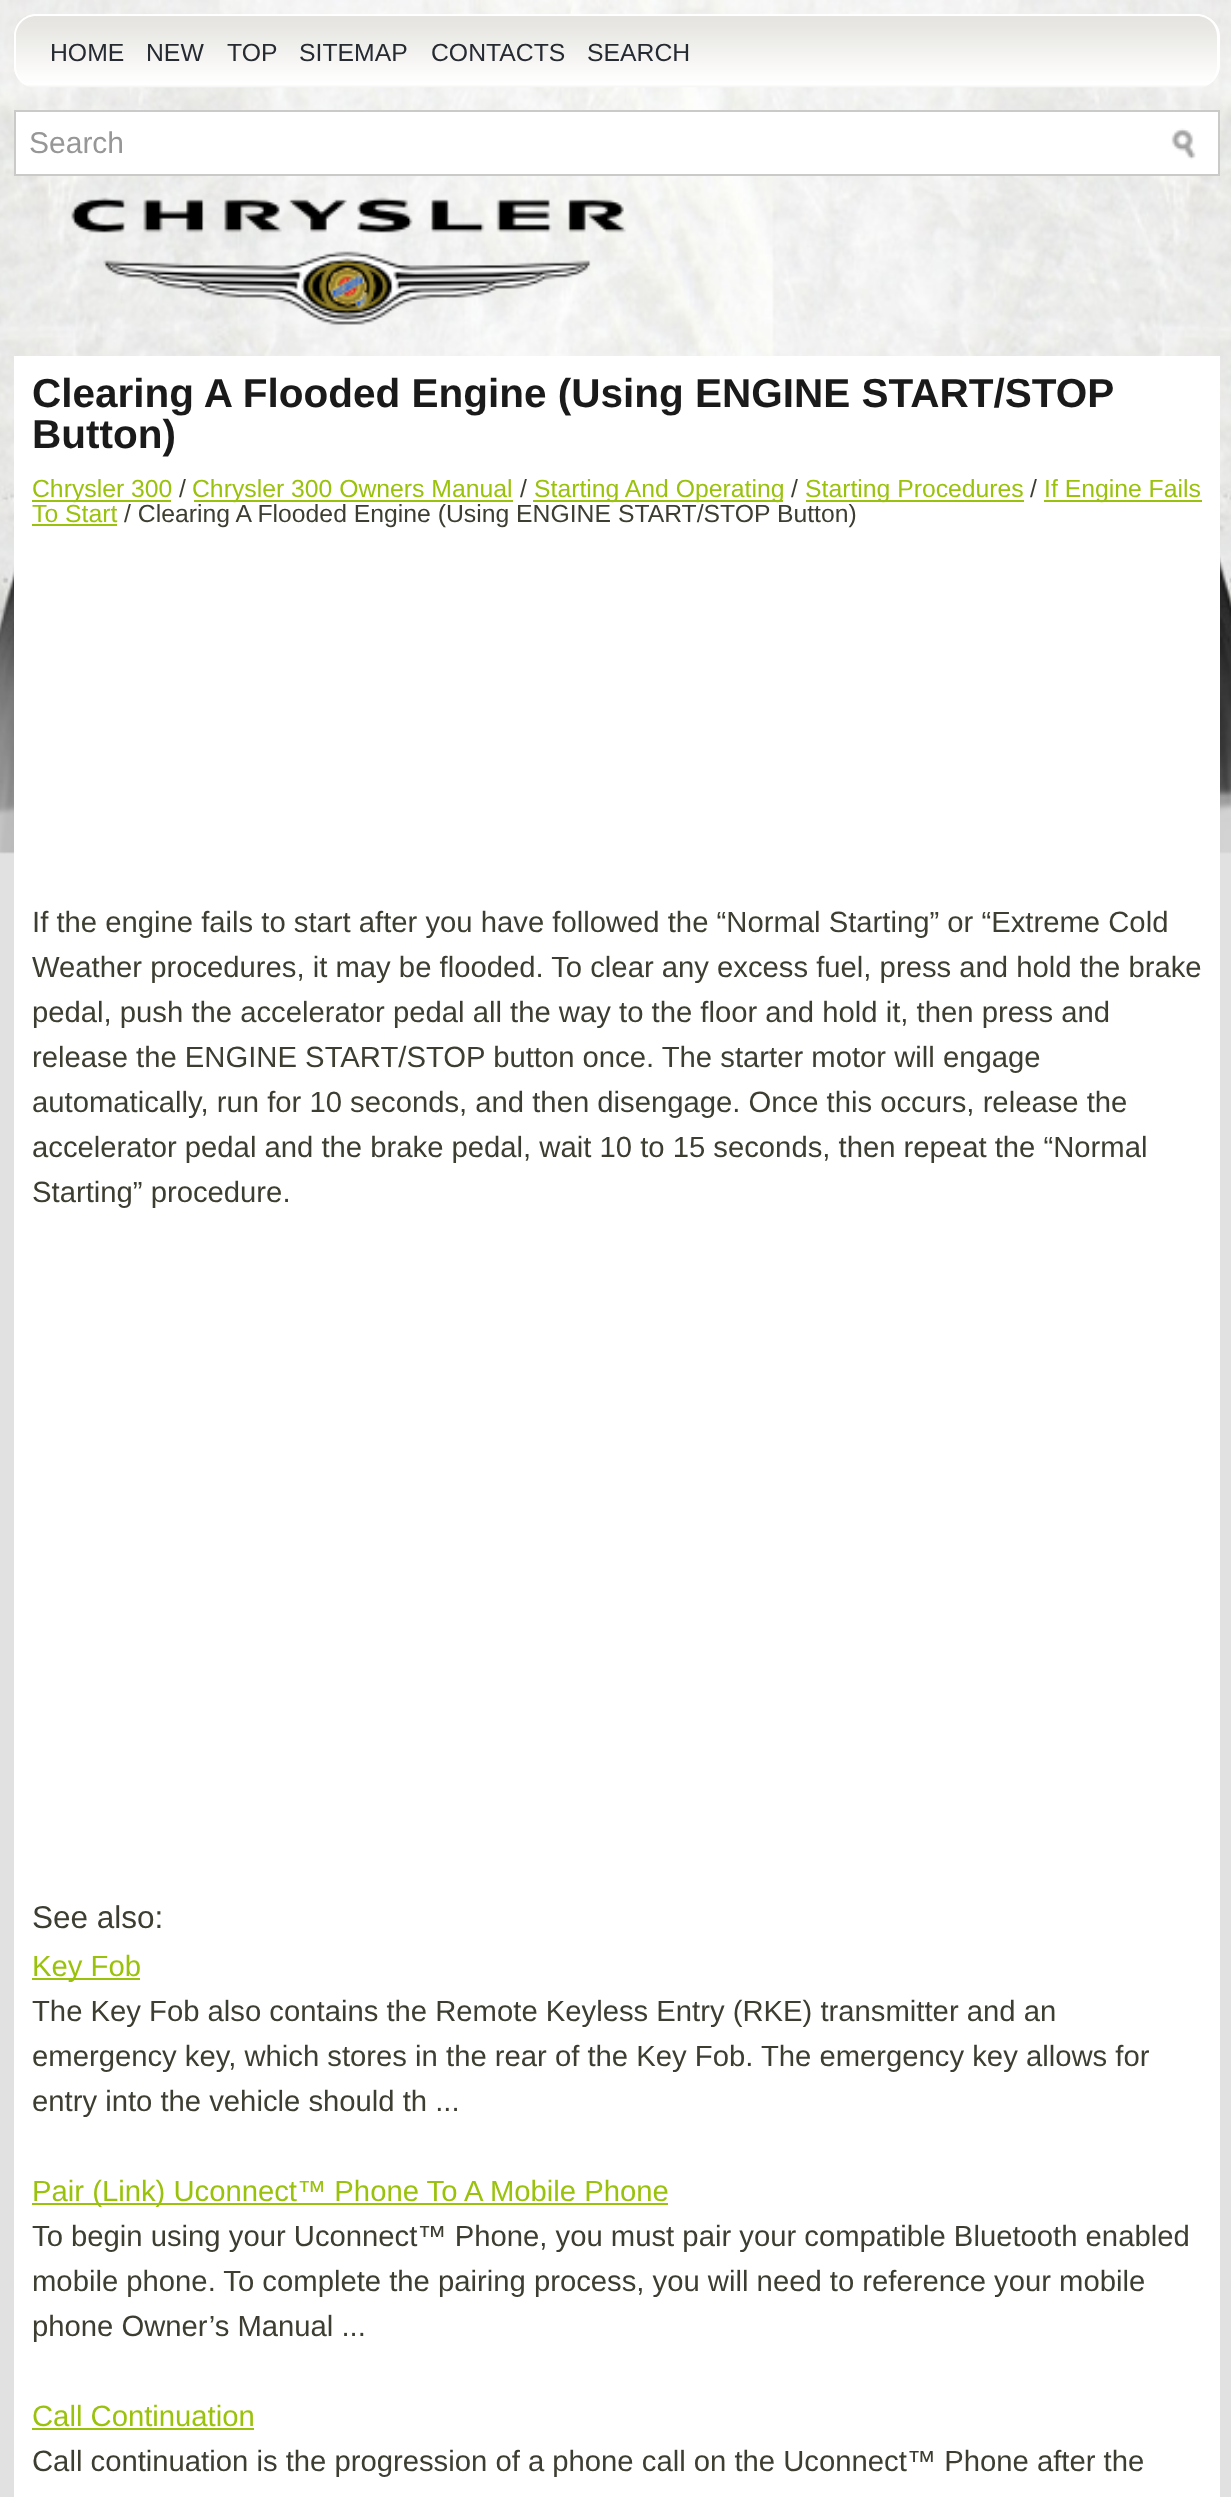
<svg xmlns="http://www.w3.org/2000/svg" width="1231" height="2497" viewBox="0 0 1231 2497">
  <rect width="100%" height="100%" fill="rgb(225,225,225)"/>
  <image x="0" y="0" width="1231" height="854" href="pic1.png"/>
  <image x="14" y="15" width="1205" height="73" href="pic2.png"/>
  <path d="M36 14H1197C1209 14 1220 24 1220 36V65C1220 78 1209 88 1197 88H36C24 88 14 78 14 65V36C14 24 24 14 36 14ZM36 16H1197C1208 16 1217 25 1217 36V65C1217 78 1208 88 1197 88H36C25 88 16 78 16 65V36C16 25 25 16 36 16Z" fill="rgb(255,255,255)" fill-rule="evenodd"/>
  <g font-family="Liberation Sans" font-size="24.75" fill="rgb(38,43,50)">
    <text x="50" y="61">HOME</text>
    <text x="146" y="61">NEW</text>
    <text x="227" y="61">TOP</text>
    <text x="299" y="61">SITEMAP</text>
    <text x="431" y="61">CONTACTS</text>
    <text x="587" y="61">SEARCH</text>
  </g>
  <rect x="15" y="111" width="1204" height="64" fill="rgb(255,255,255)" stroke="rgb(202,202,201)" stroke-width="2"/>
  <text x="29" y="153" font-family="Liberation Sans" font-size="30" fill="rgb(151,151,151)">Search</text>
  <image x="1171" y="128" width="25" height="32" href="pic3.png"/>
  <image x="71" y="197" width="555" height="128" href="pic4.png"/>
  <rect x="14" y="356" width="1206" height="2141" fill="rgb(255,255,255)"/>
  <g font-family="Liberation Sans" font-size="40.5" font-weight="bold" fill="rgb(27,26,26)">
    <text>
      <tspan x="32" y="407">Clearing A Flooded Engine (Using ENGINE START/STOP</tspan>
      <tspan x="32" y="448">Button)</tspan>
    </text>
  </g>
  <rect x="32" y="500" width="139" height="2" fill="rgb(154,194,13)"/>
  <text x="32" y="497" font-family="Liberation Sans" font-size="24.75" fill="rgb(154,194,13)">Chrysler 300</text>
  <text x="179" y="497" font-family="Liberation Sans" font-size="24.75" fill="rgb(61,61,49)">/</text>
  <rect x="194" y="500" width="319" height="2" fill="rgb(154,194,13)"/>
  <text x="192" y="497" font-family="Liberation Sans" font-size="24.75" fill="rgb(154,194,13)">Chrysler 300 Owners Manual</text>
  <text x="520" y="497" font-family="Liberation Sans" font-size="24.75" fill="rgb(61,61,49)">/</text>
  <rect x="533" y="500" width="250" height="2" fill="rgb(154,194,13)"/>
  <text x="534" y="497" font-family="Liberation Sans" font-size="24.75" fill="rgb(154,194,13)">Starting And Operating</text>
  <text x="791" y="497" font-family="Liberation Sans" font-size="24.75" fill="rgb(61,61,49)">/</text>
  <rect x="806" y="500" width="218" height="2" fill="rgb(154,194,13)"/>
  <text x="805" y="497" font-family="Liberation Sans" font-size="24.75" fill="rgb(154,194,13)">Starting Procedures</text>
  <text x="1030" y="497" font-family="Liberation Sans" font-size="24.75" fill="rgb(61,61,49)">/</text>
  <rect x="1044" y="500" width="158" height="2" fill="rgb(154,194,13)"/>
  <g font-family="Liberation Sans" font-size="24.75" fill="rgb(154,194,13)">
    <text x="1044" y="497">If Engine Fails</text>
    <text x="32" y="522">To Start</text>
  </g>
  <rect x="32" y="524" width="85" height="2" fill="rgb(154,194,13)"/>
  <text x="124" y="522" font-family="Liberation Sans" font-size="24.75" fill="rgb(61,61,49)">/ Clearing A Flooded Engine (Using ENGINE START/STOP Button)</text>
  <g font-family="Liberation Sans" font-size="29.25" fill="rgb(61,61,49)">
    <text>
      <tspan x="32" y="932">If the engine fails to start after you have followed the “Normal Starting” or “Extreme Cold</tspan>
      <tspan x="32" y="977">Weather procedures, it may be flooded. To clear any excess fuel, press and hold the brake</tspan>
      <tspan x="32" y="1022">pedal, push the accelerator pedal all the way to the floor and hold it, then press and</tspan>
      <tspan x="32" y="1067">release the ENGINE START/STOP button once. The starter motor will engage</tspan>
      <tspan x="32" y="1112">automatically, run for 10 seconds, and then disengage. Once this occurs, release the</tspan>
      <tspan x="32" y="1157">accelerator pedal and the brake pedal, wait 10 to 15 seconds, then repeat the “Normal</tspan>
      <tspan x="32" y="1202">Starting” procedure.</tspan>
    </text>
  </g>
  <text x="32" y="1928" font-family="Liberation Sans" font-size="31.5" fill="rgb(61,61,49)">See also:</text>
  <rect x="32" y="1978" width="108" height="2" fill="rgb(154,194,13)"/>
  <text x="32" y="1976" font-family="Liberation Sans" font-size="29.25" fill="rgb(154,194,13)">Key Fob</text>
  <g font-family="Liberation Sans" font-size="29.25" fill="rgb(61,61,49)">
    <text>
      <tspan x="32" y="2021">The Key Fob also contains the Remote Keyless Entry (RKE) transmitter and an</tspan>
      <tspan x="32" y="2066">emergency key, which stores in the rear of the Key Fob. The emergency key allows for</tspan>
      <tspan x="32" y="2111">entry into the vehicle should th ...</tspan>
    </text>
  </g>
  <rect x="32" y="2203" width="636" height="2" fill="rgb(154,194,13)"/>
  <text x="32" y="2201" font-family="Liberation Sans" font-size="29.25" fill="rgb(154,194,13)">Pair (Link) Uconnect™ Phone To A Mobile Phone</text>
  <g font-family="Liberation Sans" font-size="29.25" fill="rgb(61,61,49)">
    <text>
      <tspan x="32" y="2246">To begin using your Uconnect™ Phone, you must pair your compatible Bluetooth enabled</tspan>
      <tspan x="32" y="2291">mobile phone. To complete the pairing process, you will need to reference your mobile</tspan>
      <tspan x="32" y="2336">phone Owner’s Manual ...</tspan>
    </text>
  </g>
  <text x="32" y="2426" font-family="Liberation Sans" font-size="29.25" fill="rgb(154,194,13)">Call Continuation</text>
  <rect x="32" y="2428" width="222" height="2" fill="rgb(154,194,13)"/>
  <text x="32" y="2471" font-family="Liberation Sans" font-size="29.25" fill="rgb(61,61,49)">Call continuation is the progression of a phone call on the Uconnect™ Phone after the</text>
</svg>
